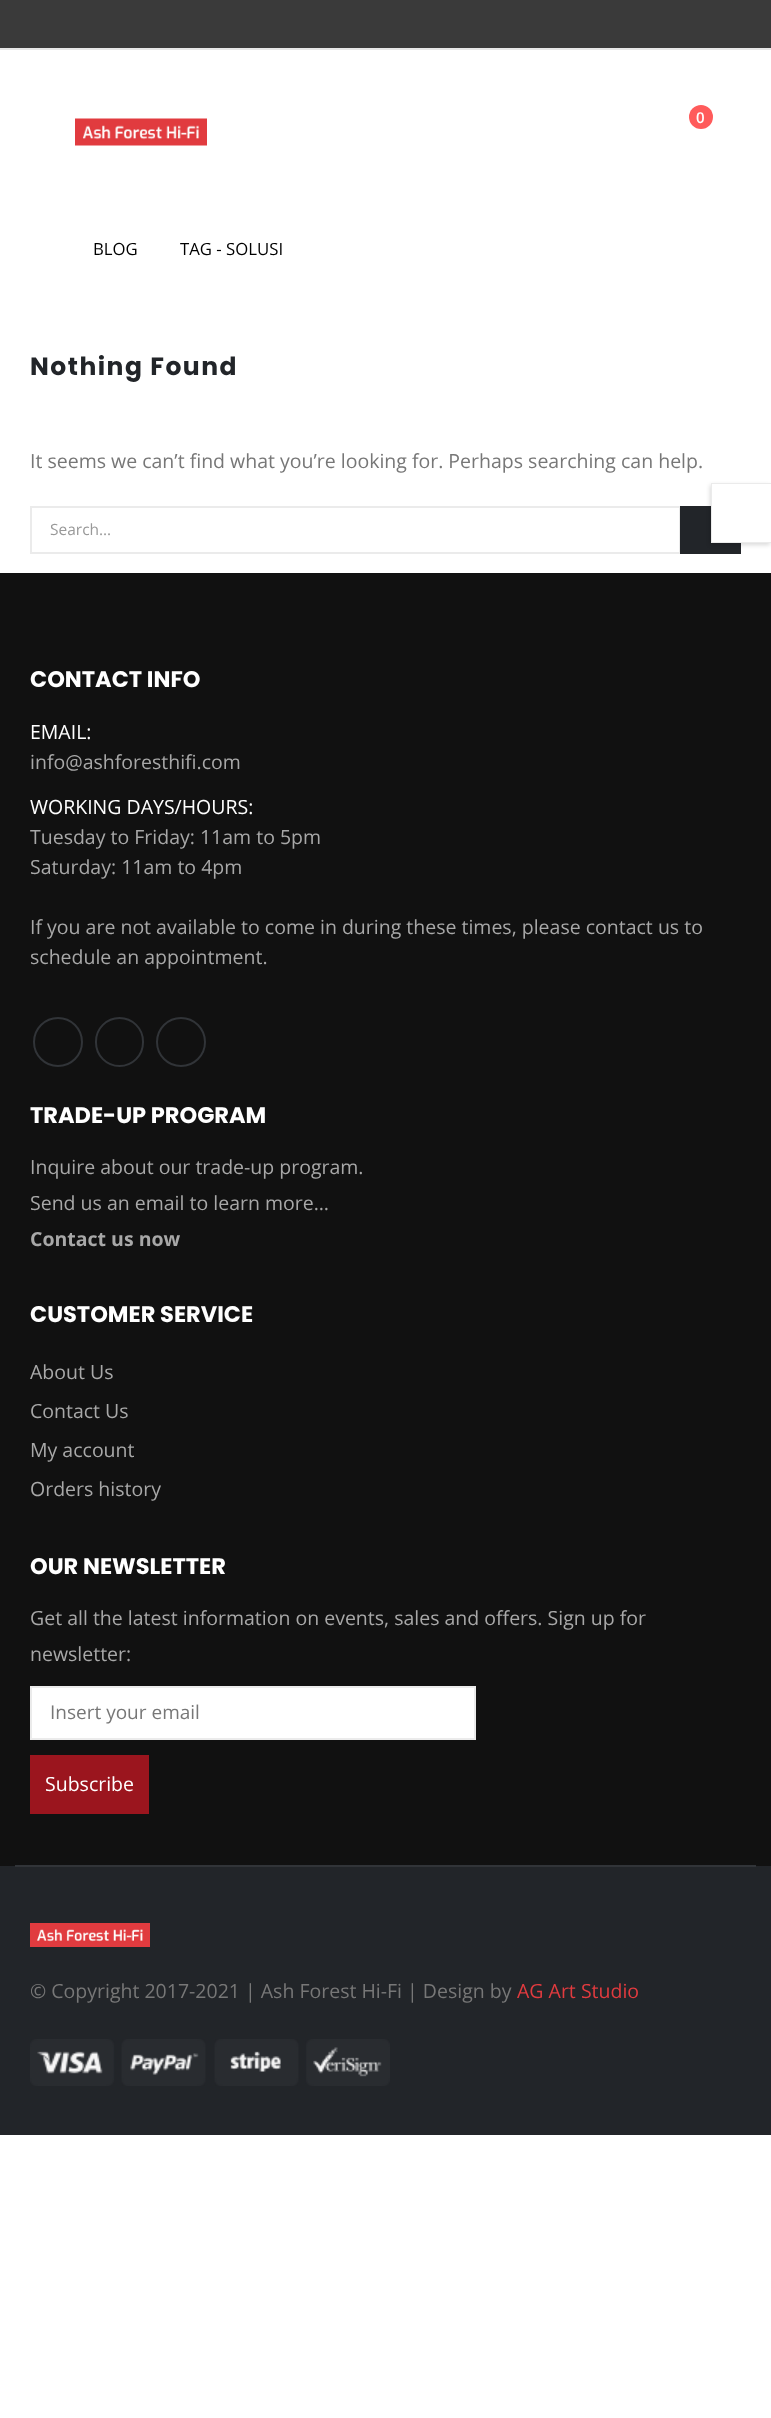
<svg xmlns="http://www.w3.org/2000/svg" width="771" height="2418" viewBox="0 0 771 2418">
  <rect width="100%" height="100%" fill="rgb(255,255,255)"/>
  <rect x="0" y="0" width="771" height="48" fill="rgb(58,58,58)"/>
  <rect x="0" y="48" width="771" height="2" fill="rgb(231,231,231)"/>
  <image x="75" y="118" width="132" height="28" href="pic1.png"/>
  <circle cx="701" cy="117" r="12" fill="rgb(255,91,91)"/>
  <text x="696" y="123" font-family="Open Sans" font-size="15" font-weight="600" fill="rgb(255,255,255)">0</text>
  <g font-family="Open Sans" font-size="16.75" fill="rgb(0,0,0)">
    <text x="93" y="255">BLOG</text>
    <text x="180" y="255">TAG - SOLUSI</text>
  </g>
  <text x="30" y="375" font-family="Poppins" font-size="25" font-weight="bold" letter-spacing="1.5" fill="rgb(34,37,41)">Nothing Found</text>
  <text x="30" y="468" font-family="Open Sans" font-size="19.5" fill="rgb(119,119,119)">It seems we can’t find what you’re looking for. Perhaps searching can help.</text>
  <rect x="31" y="507" width="649" height="46" fill="none" stroke="rgb(235,235,235)" stroke-width="2"/>
  <text x="50" y="535" font-family="Open Sans" font-size="15.5" fill="rgb(153,153,153)">Search…</text>
  <rect x="680" y="506" width="61" height="48" fill="rgb(34,37,41)"/>
  <rect x="710" y="485" width="60" height="60" fill="rgba(0,0,0,0.15)" filter="blur(2px)"/>
  <rect x="711" y="483" width="60" height="60" fill="rgb(255,255,255)"/>
  <path d="M711 483H771V484H712ZM771 543H711L712 542H771Z" fill="rgb(235,235,235)"/>
  <path d="M711 543V483L712 484V542Z" fill="rgba(0,0,0,0.08)"/>
  <rect x="0" y="573" width="771" height="1293" fill="rgb(17,17,17)"/>
  <text x="30" y="687" font-family="Poppins" font-size="22.5" font-weight="bold" fill="rgb(255,255,255)">CONTACT INFO</text>
  <text x="30" y="739" font-family="Open Sans" font-size="19.5" fill="rgb(255,255,255)">EMAIL:</text>
  <text x="30" y="769" font-family="Open Sans" font-size="19.5" fill="rgb(168,168,168)">info@ashforesthifi.com</text>
  <text x="30" y="814" font-family="Open Sans" font-size="19.5" fill="rgb(255,255,255)">WORKING DAYS/HOURS:</text>
  <g font-family="Open Sans" font-size="19.5" fill="rgb(168,168,168)">
    <text>
      <tspan x="30" y="844">Tuesday to Friday: 11am to 5pm</tspan>
      <tspan x="30" y="874">Saturday: 11am to 4pm</tspan>
    </text>
    <text>
      <tspan x="30" y="934">If you are not available to come in during these times, please contact us to</tspan>
      <tspan x="30" y="964">schedule an appointment.</tspan>
    </text>
  </g>
  <circle cx="58" cy="1042" r="24" fill="none" stroke="rgb(49,52,56)" stroke-width="2"/>
  <rect x="96" y="1018" width="47" height="48" rx="23.5" fill="none" stroke="rgb(49,52,56)" stroke-width="2"/>
  <circle cx="181" cy="1042" r="24" fill="none" stroke="rgb(49,52,56)" stroke-width="2"/>
  <text x="30" y="1123" font-family="Poppins" font-size="22.5" font-weight="bold" fill="rgb(255,255,255)">TRADE-UP PROGRAM</text>
  <g font-family="Open Sans" font-size="19.5" fill="rgb(168,168,168)">
    <text>
      <tspan x="30" y="1174">Inquire about our trade-up program.</tspan>
      <tspan x="30" y="1210">Send us an email to learn more…</tspan>
    </text>
  </g>
  <text x="30" y="1246" font-family="Open Sans" font-size="19.5" font-weight="bold" fill="rgb(168,168,168)">Contact us now</text>
  <text x="30" y="1322" font-family="Poppins" font-size="22.5" font-weight="bold" fill="rgb(255,255,255)">CUSTOMER SERVICE</text>
  <g font-family="Open Sans" font-size="19.5" fill="rgb(168,168,168)">
    <text x="30" y="1379">About Us</text>
    <text x="30" y="1418">Contact Us</text>
    <text x="30" y="1457">My account</text>
    <text x="30" y="1496">Orders history</text>
  </g>
  <text x="30" y="1574" font-family="Poppins" font-size="22.5" font-weight="bold" fill="rgb(255,255,255)">OUR NEWSLETTER</text>
  <g font-family="Open Sans" font-size="19.5" fill="rgb(168,168,168)">
    <text>
      <tspan x="30" y="1625">Get all the latest information on events, sales and offers. Sign up for</tspan>
      <tspan x="30" y="1661">newsletter:</tspan>
    </text>
  </g>
  <rect x="31" y="1687" width="444" height="52" fill="rgb(255,255,255)" stroke="rgb(235,235,235)" stroke-width="2"/>
  <text x="50" y="1719" font-family="Open Sans" font-size="19" fill="rgb(119,119,119)">Insert your email</text>
  <rect x="30" y="1755" width="119" height="59" fill="rgb(155,21,30)"/>
  <text x="45" y="1791" font-family="Open Sans" font-size="19.5" fill="rgb(255,255,255)">Subscribe</text>
  <rect x="0" y="1866" width="771" height="269" fill="rgb(34,37,41)"/>
  <rect x="15" y="1865" width="741" height="2" fill="rgb(49,52,56)"/>
  <image x="30" y="1923" width="120" height="24" href="pic2.png"/>
  <text x="30" y="1998" font-family="Open Sans" font-size="19.5" fill="rgb(119,119,119)">© Copyright 2017-2021 | Ash Forest Hi-Fi | Design by</text>
  <text x="517" y="1998" font-family="Open Sans" font-size="19.5" fill="rgb(225,59,63)">AG Art Studio</text>
  <image x="30" y="2039" width="360" height="47" href="pic3.png"/>
</svg>
